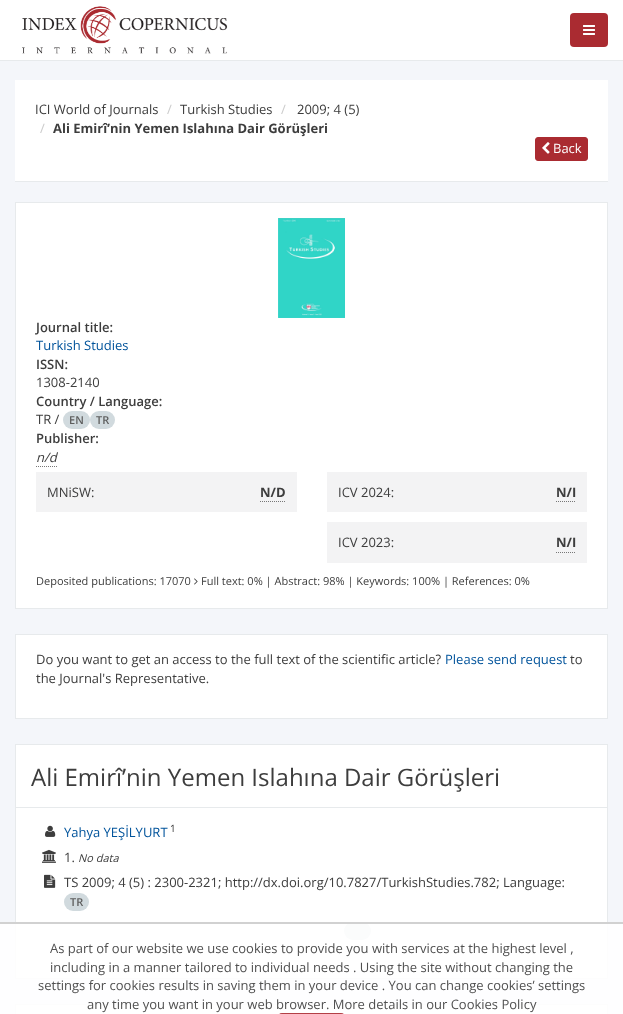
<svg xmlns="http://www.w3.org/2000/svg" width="623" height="1014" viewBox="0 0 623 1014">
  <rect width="100%" height="100%" fill="rgb(244,246,250)"/>
  <rect x="0" y="0" width="623" height="60" fill="rgb(255,255,255)"/>
  <rect x="0" y="60" width="623" height="1" fill="rgb(231,234,236)"/>
  <image x="22" y="6" width="206" height="48" href="pic1.png"/>
  <rect x="570" y="13" width="38" height="34" rx="4" fill="rgb(170,43,49)"/>
  <image x="583" y="25" width="12" height="10" href="pic2.png"/>
  <rect x="15" y="80" width="593" height="101" fill="rgb(255,255,255)"/>
  <rect x="15" y="181" width="593" height="1" fill="rgb(231,234,236)"/>
  <text x="35" y="114" font-family="Open Sans" font-size="13" fill="rgb(61,61,61)">ICI World of Journals</text>
  <text x="167" y="114" font-family="Open Sans" font-size="13" fill="rgb(204,204,204)">/</text>
  <text x="180" y="114" font-family="Open Sans" font-size="13" fill="rgb(61,61,61)">Turkish Studies</text>
  <text x="281" y="114" font-family="Open Sans" font-size="13" fill="rgb(204,204,204)">/</text>
  <text x="297" y="114" font-family="Open Sans" font-size="13" fill="rgb(61,61,61)">2009; 4 (5)</text>
  <text x="40" y="133" font-family="Open Sans" font-size="13" fill="rgb(204,204,204)">/</text>
  <text x="53" y="133" font-family="Open Sans" font-size="13" font-weight="bold" fill="rgb(61,61,61)">Ali Emirî’nin Yemen Islahına Dair Görüşleri</text>
  <rect x="535.5" y="137.5" width="52" height="23" rx="2.5" fill="rgb(170,43,49)" stroke="rgb(170,43,49)"/>
  <image x="542" y="142" width="8" height="12" href="pic3.png"/>
  <text x="553" y="153" font-family="Open Sans" font-size="13" fill="rgb(255,255,255)">Back</text>
  <rect x="15.5" y="202.5" width="592" height="406" fill="rgb(255,255,255)" stroke="rgb(231,234,236)"/>
  <image x="278" y="218" width="67" height="100" href="pic4.png"/>
  <text x="36" y="332" font-family="Open Sans" font-size="13" font-weight="600" fill="rgb(61,61,61)">Journal title:</text>
  <text x="36" y="350" font-family="Open Sans" font-size="13" fill="rgb(0,83,155)">Turkish Studies</text>
  <text x="36" y="369" font-family="Open Sans" font-size="13" font-weight="600" fill="rgb(61,61,61)">ISSN:</text>
  <text x="36" y="387" font-family="Open Sans" font-size="13" fill="rgb(61,61,61)">1308-2140</text>
  <text x="36" y="406" font-family="Open Sans" font-size="13" font-weight="600" fill="rgb(61,61,61)">Country / Language:</text>
  <text x="36" y="424" font-family="Open Sans" font-size="13" fill="rgb(61,61,61)">TR /</text>
  <rect x="63" y="411" width="27" height="18" rx="9" fill="rgb(209,218,222)"/>
  <text x="69" y="424" font-family="Open Sans" font-size="11" font-weight="600" fill="rgb(94,94,94)">EN</text>
  <rect x="90" y="411" width="25" height="18" rx="9" fill="rgb(209,218,222)"/>
  <text x="96" y="424" font-family="Open Sans" font-size="11" font-weight="600" fill="rgb(94,94,94)">TR</text>
  <text x="36" y="443" font-family="Open Sans" font-size="13" font-weight="600" fill="rgb(61,61,61)">Publisher:</text>
  <text x="36" y="462" font-family="Open Sans" font-size="13" font-style="italic" fill="rgb(61,61,61)">n/d</text>
  <path d="M36 466.5H57" fill="none" stroke="rgb(119,119,119)" stroke-dasharray="1 1"/>
  <rect x="36" y="472" width="261" height="40" fill="rgb(243,243,244)"/>
  <text x="47" y="497" font-family="Open Sans" font-size="13" fill="rgb(61,61,61)">MNiSW:</text>
  <path d="M260 501.5H286" fill="none" stroke="rgb(119,119,119)" stroke-dasharray="1 1"/>
  <text x="260" y="497" font-family="Open Sans" font-size="13" font-weight="bold" fill="rgb(61,61,61)">N/D</text>
  <rect x="327" y="472" width="260" height="40" fill="rgb(243,243,244)"/>
  <text x="338" y="497" font-family="Open Sans" font-size="13" fill="rgb(61,61,61)">ICV 2024:</text>
  <path d="M556 501.5H576" fill="none" stroke="rgb(119,119,119)" stroke-dasharray="1 1"/>
  <text x="556" y="497" font-family="Open Sans" font-size="13" font-weight="bold" fill="rgb(61,61,61)">N/I</text>
  <rect x="327" y="522" width="260" height="41" fill="rgb(243,243,244)"/>
  <text x="338" y="547" font-family="Open Sans" font-size="13" fill="rgb(61,61,61)">ICV 2023:</text>
  <path d="M556 552.5H576" fill="none" stroke="rgb(119,119,119)" stroke-dasharray="1 1"/>
  <text x="556" y="547" font-family="Open Sans" font-size="13" font-weight="bold" fill="rgb(61,61,61)">N/I</text>
  <text x="36" y="585" font-family="Open Sans" font-size="11" fill="rgb(61,61,61)">Deposited publications: 17070</text>
  <image x="194" y="578" width="4" height="7" href="pic5.png"/>
  <text x="201" y="585" font-family="Open Sans" font-size="11" fill="rgb(61,61,61)">Full text: 0% | Abstract: 98% | Keywords: 100% | References: 0%</text>
  <rect x="15.5" y="634.5" width="592" height="84" fill="rgb(255,255,255)" stroke="rgb(231,234,236)"/>
  <text x="36" y="664" font-family="Open Sans" font-size="13" fill="rgb(61,61,61)">Do you want to get an access to the full text of the scientific article?</text>
  <text x="445" y="664" font-family="Open Sans" font-size="13" fill="rgb(0,83,155)">Please send request</text>
  <g font-family="Open Sans" font-size="13" fill="rgb(61,61,61)">
    <text x="570" y="664">to</text>
    <text x="36" y="683">the Journal's Representative.</text>
  </g>
  <rect x="16" y="745" width="591" height="62" fill="rgb(255,255,255)"/>
  <rect x="15" y="744" width="593" height="1" fill="rgb(231,234,236)"/>
  <rect x="607" y="744" width="1" height="63" fill="rgb(231,234,236)"/>
  <rect x="15" y="744" width="1" height="63" fill="rgb(231,234,236)"/>
  <text x="31" y="786" font-family="Open Sans" font-size="24" fill="rgb(61,61,61)">Ali Emirî’nin Yemen Islahına Dair Görüşleri</text>
  <rect x="15.5" y="807.5" width="592" height="171" fill="rgb(255,255,255)" stroke="rgb(231,234,236)"/>
  <image x="45" y="825" width="11" height="12" href="pic6.png"/>
  <text x="64" y="837" font-family="Open Sans" font-size="13" fill="rgb(0,83,155)">Yahya YEŞİLYURT</text>
  <text x="170" y="832" font-family="Open Sans" font-size="10" fill="rgb(61,61,61)">1</text>
  <image x="42" y="849" width="14" height="14" href="pic7.png"/>
  <text x="64" y="862" font-family="Open Sans" font-size="13" fill="rgb(61,61,61)">1.</text>
  <text x="78" y="862" font-family="Open Sans" font-size="11" font-style="italic" fill="rgb(61,61,61)">No data</text>
  <image x="44" y="874" width="12" height="14" href="pic8.png"/>
  <text x="64" y="887" font-family="Open Sans" font-size="13" fill="rgb(61,61,61)">TS 2009; 4 (5) : 2300-2321; http://dx.doi.org/10.7827/TurkishStudies.782; Language:</text>
  <rect x="64" y="893" width="25" height="18" rx="9" fill="rgb(209,218,222)"/>
  <text x="70" y="906" font-family="Open Sans" font-size="11" font-weight="600" fill="rgb(94,94,94)">TR</text>
  <rect x="344" y="922" width="27" height="18" rx="9" fill="rgb(209,218,222)"/>
  <rect x="16" y="1005" width="591" height="9" fill="rgb(255,255,255)"/>
  <rect x="15" y="1004" width="593" height="1" fill="rgb(231,234,236)"/>
  <rect x="607" y="1004" width="1" height="10" fill="rgb(231,234,236)"/>
  <rect x="15" y="1004" width="1" height="10" fill="rgb(231,234,236)"/>
  <rect x="0" y="922" width="623" height="92" fill="rgba(255,255,255,0.9)"/>
  <rect x="0" y="922" width="623" height="2" fill="rgba(204,204,204,0.9)"/>
  <g font-family="Open Sans" font-size="13" fill="rgb(80,80,80)">
    <text>
      <tspan x="50" y="953">As part of our website we use cookies to provide you with services at the highest level ,</tspan>
      <tspan x="50" y="972">including in a manner tailored to individual needs . Using the site without changing the</tspan>
    </text>
    <text x="38" y="990">settings for cookies results in saving them in your device . You can change cookies’ settings</text>
    <text x="87" y="1009">any time you want in your web browser. More details in our Cookies Policy</text>
  </g>
  <rect x="279" y="1013" width="65" height="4" rx="3" fill="rgb(179,64,70)"/>
</svg>
